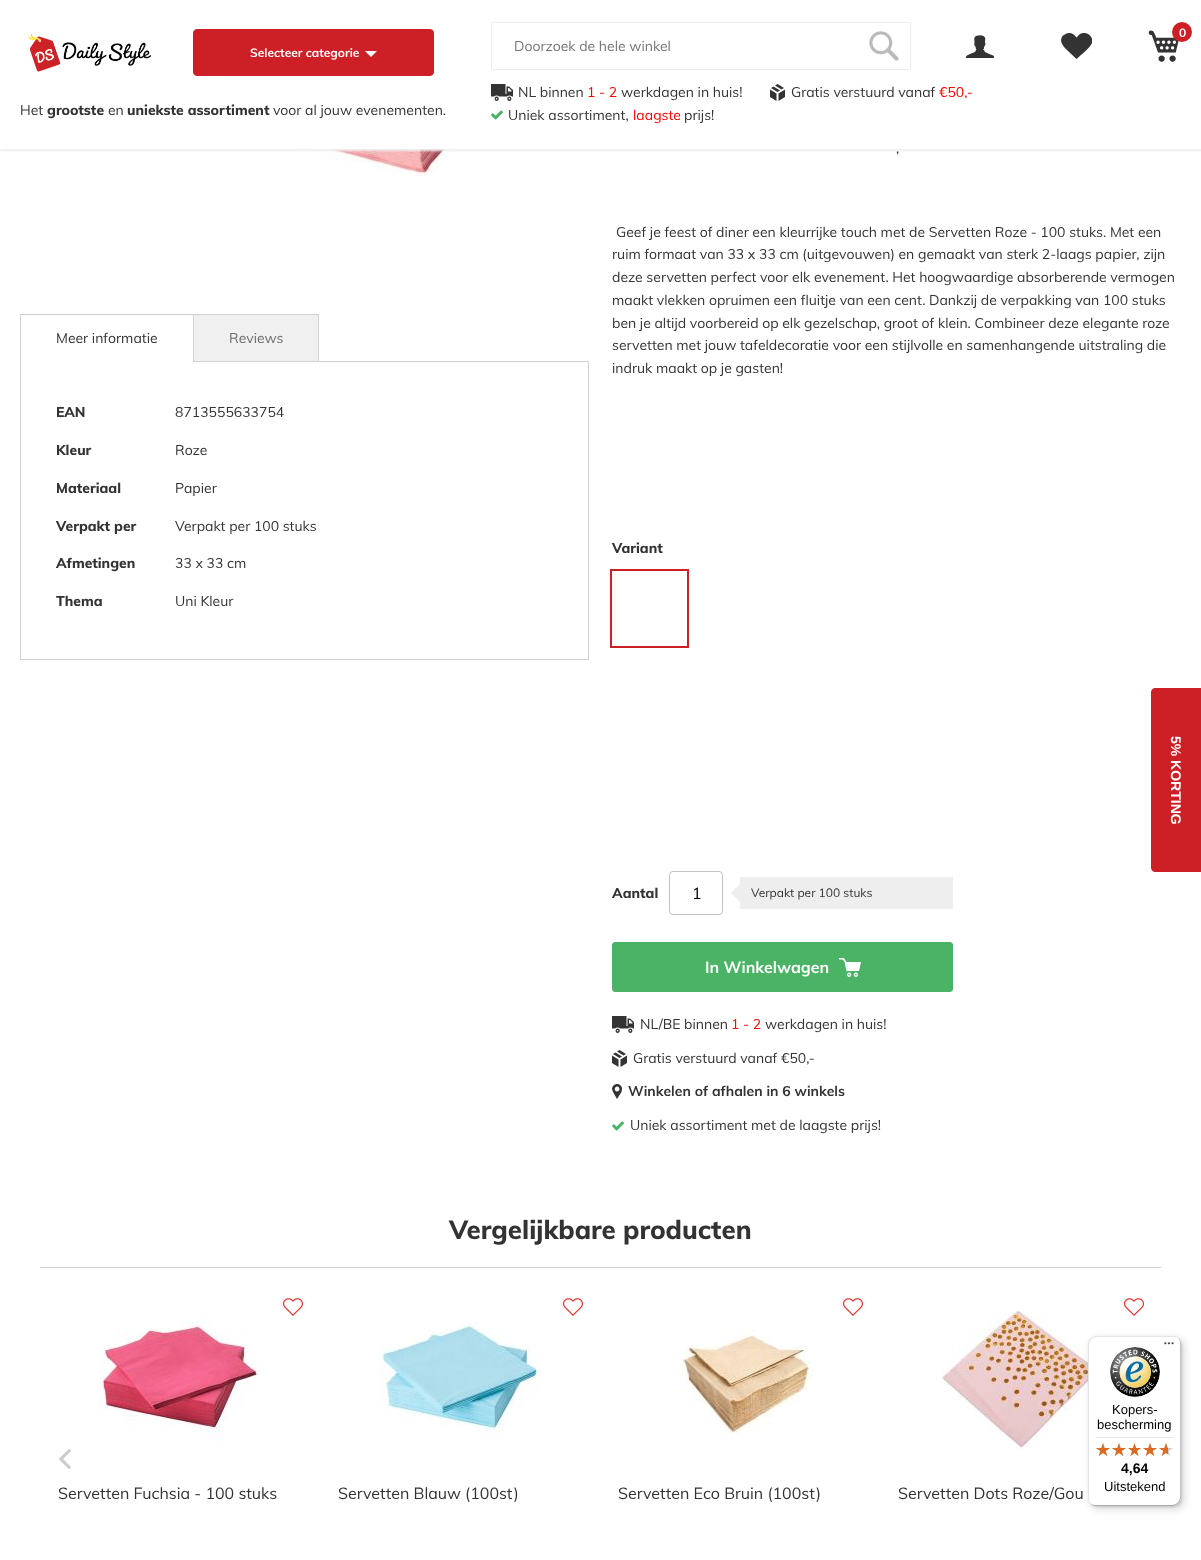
<svg xmlns="http://www.w3.org/2000/svg" width="1201" height="1560" viewBox="0 0 1201 1560">
  <defs>
    <clipPath id="clip1"><rect x="966" y="35" width="28" height="23"/></clipPath>
    <clipPath id="clip2"><rect x="1061" y="33" width="31" height="26"/></clipPath>
    <clipPath id="clip3"><rect x="839" y="958" width="22" height="19"/></clipPath>
  </defs>
  <rect width="100%" height="100%" fill="rgb(255,255,255)"/>
  <image x="164" y="149" width="373" height="28" href="pic5.png"/>
  <rect x="0" y="0" width="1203" height="151" fill="rgb(238,238,238)" filter="blur(1px)"/>
  <rect x="0" y="0" width="1201" height="149" fill="rgb(255,255,255)"/>
  <image x="28" y="34" width="123" height="38" href="pic1.png"/>
  <rect x="193.5" y="29.5" width="240" height="46" rx="3.5" fill="rgb(205,32,38)" stroke="rgb(205,32,38)"/>
  <text x="250" y="57" font-family="Muli" font-size="12" font-weight="bold" fill="rgb(255,255,255)">Selecteer categorie</text>
  <path d="M365 51H377L371 57Z" fill="rgb(255,255,255)"/>
  <text x="20" y="115" font-family="Muli" font-size="14" fill="rgb(51,51,51)">Het</text>
  <text x="47" y="115" font-family="Muli" font-size="14" font-weight="800" fill="rgb(51,51,51)">grootste</text>
  <text x="108" y="115" font-family="Muli" font-size="14" fill="rgb(51,51,51)">en</text>
  <text x="127" y="115" font-family="Muli" font-size="14" font-weight="800" fill="rgb(51,51,51)">uniekste assortiment</text>
  <text x="273" y="115" font-family="Muli" font-size="14" fill="rgb(51,51,51)">voor al jouw evenementen.</text>
  <rect x="491.5" y="22.5" width="419" height="47" rx="0.5" fill="none" stroke="rgb(238,238,238)"/>
  <text x="514" y="51" font-family="Muli" font-size="14" fill="rgb(117,117,117)">Doorzoek de hele winkel</text>
  <image x="869" y="31" width="30" height="30" href="pic2.png"/>
  <g clip-path="url(#clip1)">
    <path d="M985 37.5C985.5 39 985 40.5 985 42L985.5 44L985 45.5L984 47V48.5L983 50H984L985 52L990.5 54.5C995 56 994 56.5 994 60.5H966C966 56 965.5 56 970 54L975 52L976 50H976.5L976 49L975.5 46.5C974.5 46.5 974 44.5 974.5 43V42.5C974.5 40.5 974 39.5 974.5 37.5C976 35 981 34.5 983.5 36L984 36.5Z" fill="rgb(51,51,51)"/>
  </g>
  <g clip-path="url(#clip2)">
    <path d="M1069 33C1067 33 1064 34.5 1062.5 36C1058.5 42 1064 47 1068 51L1076.5 59C1081 55 1089 48.5 1091.5 44C1095 37.5 1087 31 1081 33.5C1079 34.5 1078 36 1076.5 37.5C1074.5 35 1072.5 33 1069 33Z" fill="rgb(51,51,51)"/>
  </g>
  <image x="1148" y="30" width="31" height="32" href="pic3.png"/>
  <circle cx="1182" cy="32" r="10" fill="rgb(205,32,38)"/>
  <text x="1179" y="37" font-family="Muli" font-size="12" font-weight="bold" fill="rgb(255,255,255)">0</text>
  <path d="M509 86.5H506.5V94H505.5V84H491V96.5H494C495.5 95 498 95 499 96.5H507C508 95 510.5 95 512 96.5H513V90ZM508 91.5V88H509L511.5 90.5V91.5ZM496.5 96.5C494 96.5 494 101 496.5 101C499.5 101 499.5 96.5 496.5 96.5ZM509.5 96.5C506.5 96.5 506.5 101 509.5 101C512 101 512 96.5 509.5 96.5ZM496.5 99.5C495.5 99.5 495.5 98 496.5 98C498 98 497.5 99.5 496.5 99.5ZM509.5 99.5C508 99.5 508 98 509.5 98C510.5 98 510.5 99.5 509.5 99.5Z" fill="rgb(51,51,51)" fill-rule="evenodd"/>
  <text x="518" y="97" font-family="Muli" font-size="14" fill="rgb(51,51,51)">NL binnen</text>
  <text x="587" y="97" font-family="Muli" font-size="14" fill="rgb(255,0,0)">1 - 2</text>
  <text x="621" y="97" font-family="Muli" font-size="14" fill="rgb(51,51,51)">werkdagen in huis!</text>
  <path d="M777.5 84L784 88L781.5 89.5L775 85.5ZM773.5 86.5L780 90.5L777.5 92L771 88ZM778.5 101L785 97V89.5L778.5 93.5ZM770 89.5L776.5 93.5V101L770 97Z" fill="rgb(51,51,51)" fill-rule="evenodd"/>
  <text x="791" y="97" font-family="Muli" font-size="14" fill="rgb(51,51,51)">Gratis verstuurd vanaf</text>
  <text x="939" y="97" font-family="Muli" font-size="14" fill="rgb(255,0,0)">€50,-</text>
  <image x="491" y="110" width="12" height="10" href="pic4.png"/>
  <text x="508" y="120" font-family="Muli" font-size="14" fill="rgb(51,51,51)">Uniek assortiment,</text>
  <text x="633" y="120" font-family="Muli" font-size="14" fill="rgb(255,0,0)">laagste</text>
  <g font-family="Muli" font-size="14" fill="rgb(51,51,51)">
    <text x="684" y="120">prijs!</text>
    <text x="896" y="153">,</text>
    <text x="616" y="237">Geef je feest of diner een kleurrijke touch met de Servetten Roze - 100 stuks. Met een</text>
    <text>
      <tspan x="612" y="259">ruim formaat van 33 x 33 cm (uitgevouwen) en gemaakt van sterk 2-laags papier, zijn</tspan>
      <tspan x="612" y="282">deze servetten perfect voor elk evenement. Het hoogwaardige absorberende vermogen</tspan>
      <tspan x="612" y="305">maakt vlekken opruimen een fluitje van een cent. Dankzij de verpakking van 100 stuks</tspan>
      <tspan x="612" y="328">ben je altijd voorbereid op elk gezelschap, groot of klein. Combineer deze elegante roze</tspan>
      <tspan x="612" y="350">servetten met jouw tafeldecoratie voor een stijlvolle en samenhangende uitstraling die</tspan>
      <tspan x="612" y="373">indruk maakt op je gasten!</tspan>
    </text>
  </g>
  <text x="612" y="553" font-family="Muli" font-size="14" font-weight="800" fill="rgb(51,51,51)">Variant</text>
  <rect x="611" y="570" width="77" height="77" fill="none" stroke="rgb(205,32,38)" stroke-width="2"/>
  <text x="612" y="898" font-family="Muli" font-size="14" font-weight="800" fill="rgb(51,51,51)">Aantal</text>
  <rect x="669.5" y="871.5" width="53" height="43" rx="3.5" fill="none" stroke="rgb(194,194,194)"/>
  <text x="692" y="899" font-family="Muli" font-size="16" fill="rgb(0,0,0)">1</text>
  <rect x="740" y="877" width="213" height="32" fill="rgb(238,238,238)"/>
  <path d="M740 884V902L731 893Z" fill="rgb(238,238,238)"/>
  <text x="751" y="897" font-family="Muli" font-size="12" fill="rgb(51,51,51)">Verpakt per 100 stuks</text>
  <rect x="612.5" y="942.5" width="340" height="49" rx="2.5" fill="rgb(75,179,102)" stroke="rgb(75,179,102)"/>
  <text x="705" y="973" font-family="Muli" font-size="16" font-weight="bold" fill="rgb(255,255,255)">In Winkelwagen</text>
  <g clip-path="url(#clip3)">
    <path d="M846.5 962L843.5 957.5H839V959.5H843L844.5 962L846.5 971H859L861 962ZM849 972.5C846.5 972.5 846.5 977 849 977C852 977 852 972.5 849 972.5ZM856 972.5C853 972.5 853 977 856 977C858.5 977 858.5 972.5 856 972.5ZM849 975.5C848 975.5 848 974 849 974C850.5 974 850.5 975.5 849 975.5ZM856 975.5C854.5 975.5 854.5 974 856 974C857 974 857 975.5 856 975.5Z" fill="rgb(255,255,255)" fill-rule="evenodd"/>
  </g>
  <path d="M630 1018.5H627.5V1026H626.5V1016H612V1028.5H615C616.5 1027 619 1027 620 1028.5H628C629 1027 631.5 1027 633 1028.5H634V1022ZM629 1023.5V1020H630L632.5 1022.5V1023.5ZM617.5 1028.5C615 1028.5 615 1033 617.5 1033C620.5 1033 620.5 1028.5 617.5 1028.5ZM630.5 1028.5C627.5 1028.5 627.5 1033 630.5 1033C633 1033 633 1028.5 630.5 1028.5ZM617.5 1031.5C616.5 1031.5 616.5 1030 617.5 1030C619 1030 618.5 1031.5 617.5 1031.5ZM630.5 1031.5C629 1031.5 629 1030 630.5 1030C631.5 1030 631.5 1031.5 630.5 1031.5ZM619.5 1050L626 1054L623.5 1055.5L617 1051.5ZM615.5 1052.5L622 1056.5L619.5 1058L613 1054ZM620.5 1067L627 1063V1055.5L620.5 1059.5ZM612 1055.5L618.5 1059.5V1067L612 1063Z" fill="rgb(51,51,51)" fill-rule="evenodd"/>
  <text x="640" y="1029" font-family="Muli" font-size="14" fill="rgb(51,51,51)">NL/BE binnen</text>
  <text x="731" y="1029" font-family="Muli" font-size="14" fill="rgb(255,0,0)">1 - 2</text>
  <g font-family="Muli" font-size="14" fill="rgb(51,51,51)">
    <text x="765" y="1029">werkdagen in huis!</text>
    <text x="633" y="1063">Gratis verstuurd vanaf €50,-</text>
  </g>
  <path d="M617 1084C616 1084 614.5 1084.5 613.5 1085.5C612.5 1086.5 612 1088 612 1089L613 1092L617 1099L621.5 1092L622 1089C622.5 1088 621.5 1086.5 620.5 1085.5C620 1084.5 618.5 1084 617 1084ZM617 1091.5C614 1091.5 614 1087 617 1086.5C620 1086.5 620.5 1091.5 617 1091.5Z" fill="rgb(51,51,51)" fill-rule="evenodd"/>
  <text x="628" y="1096" font-family="Muli" font-size="14" font-weight="bold" fill="rgb(51,51,51)">Winkelen of afhalen in 6 winkels</text>
  <image x="612" y="1121" width="12" height="10" href="pic4.png"/>
  <text x="630" y="1130" font-family="Muli" font-size="14" fill="rgb(51,51,51)">Uniek assortiment met de laagste prijs!</text>
  <rect x="20.5" y="361.5" width="568" height="298" fill="none" stroke="rgb(209,209,209)"/>
  <rect x="21" y="361" width="172" height="1" fill="rgb(255,255,255)"/>
  <rect x="20" y="314" width="299" height="1" fill="rgb(209,209,209)"/>
  <rect x="20" y="314" width="1" height="48" fill="rgb(209,209,209)"/>
  <text x="56" y="343" font-family="Muli" font-size="14" fill="rgb(51,51,51)">Meer informatie</text>
  <rect x="194" y="315" width="124" height="46" fill="rgb(240,240,240)"/>
  <rect x="318" y="314" width="1" height="47" fill="rgb(209,209,209)"/>
  <rect x="193" y="314" width="1" height="47" fill="rgb(209,209,209)"/>
  <text x="229" y="343" font-family="Muli" font-size="14" fill="rgb(109,109,109)">Reviews</text>
  <text x="56" y="417" font-family="Muli" font-size="14" font-weight="800" fill="rgb(51,51,51)">EAN</text>
  <text x="175" y="417" font-family="Muli" font-size="14" fill="rgb(51,51,51)">8713555633754</text>
  <text x="56" y="455" font-family="Muli" font-size="14" font-weight="800" fill="rgb(51,51,51)">Kleur</text>
  <text x="175" y="455" font-family="Muli" font-size="14" fill="rgb(51,51,51)">Roze</text>
  <text x="56" y="493" font-family="Muli" font-size="14" font-weight="800" fill="rgb(51,51,51)">Materiaal</text>
  <text x="175" y="493" font-family="Muli" font-size="14" fill="rgb(51,51,51)">Papier</text>
  <text x="56" y="531" font-family="Muli" font-size="14" font-weight="800" fill="rgb(51,51,51)">Verpakt per</text>
  <text x="175" y="531" font-family="Muli" font-size="14" fill="rgb(51,51,51)">Verpakt per 100 stuks</text>
  <text x="56" y="568" font-family="Muli" font-size="14" font-weight="800" fill="rgb(51,51,51)">Afmetingen</text>
  <text x="175" y="568" font-family="Muli" font-size="14" fill="rgb(51,51,51)">33 x 33 cm</text>
  <text x="56" y="606" font-family="Muli" font-size="14" font-weight="800" fill="rgb(51,51,51)">Thema</text>
  <text x="175" y="606" font-family="Muli" font-size="14" fill="rgb(51,51,51)">Uni Kleur</text>
  <text x="449" y="1239" font-family="Muli" font-size="26" font-weight="800" fill="rgb(51,51,51)">Vergelijkbare producten</text>
  <rect x="40" y="1267" width="1121" height="1" fill="rgb(209,209,209)"/>
  <image x="59" y="1449" width="12" height="20" href="pic6.png"/>
  <image x="283" y="1298" width="20" height="18" href="pic7.png"/>
  <image x="100" y="1318" width="160" height="123" href="pic8.png"/>
  <text x="58" y="1499" font-family="Muli" font-size="16" fill="rgb(51,51,51)">Servetten Fuchsia - 100 stuks</text>
  <image x="563" y="1298" width="20" height="18" href="pic7.png"/>
  <image x="380" y="1321" width="160" height="117" href="pic9.png"/>
  <text x="338" y="1499" font-family="Muli" font-size="16" fill="rgb(51,51,51)">Servetten Blauw (100st)</text>
  <image x="843" y="1298" width="20" height="18" href="pic7.png"/>
  <image x="677" y="1329" width="136" height="105" href="pic10.png"/>
  <text x="618" y="1499" font-family="Muli" font-size="16" fill="rgb(51,51,51)">Servetten Eco Bruin (100st)</text>
  <image x="1124" y="1298" width="20" height="18" href="pic7.png"/>
  <image x="941" y="1310" width="159" height="139" href="pic11.png"/>
  <text x="898" y="1499" font-family="Muli" font-size="16" fill="rgb(51,51,51)">Servetten Dots Roze/Gou</text>
  <path d="M1201 688V872H1155C1153 872 1151 870 1151 868V692C1151 690 1153 688 1155 688Z" fill="rgb(205,32,38)"/>
  <text x="1171" y="736" transform="rotate(90 1171 736)" font-family="Liberation Sans" font-size="14" font-weight="bold" fill="rgb(255,255,255)">5% KORTING</text>
  <rect x="1091" y="1339" width="93" height="170" rx="8" fill="rgba(0,0,0,0.15)" filter="blur(4px)"/>
  <rect x="1089" y="1337" width="93" height="170" rx="8" fill="rgba(0,0,0,0.15)" filter="blur(1px)"/>
  <rect x="1088" y="1336" width="93" height="170" rx="8" fill="rgb(255,255,255)"/>
  <path d="M1097 1337H1174C1176 1337 1178 1338 1180 1340C1178 1338 1176 1336 1173 1336H1096C1092 1336 1088 1340 1088 1344V1498C1088 1501 1090 1503 1092 1505C1090 1503 1089 1501 1089 1499V1345C1089 1341 1093 1337 1097 1337Z" fill="rgba(0,0,0,0.1)"/>
  <path d="M1089 1502C1091 1504 1093 1506 1096 1506H1173C1177 1506 1181 1502 1181 1498V1344C1181 1341 1179 1339 1177 1337C1179 1339 1180 1341 1180 1343V1497C1180 1501 1176 1505 1172 1505H1095C1093 1505 1091 1504 1089 1502Z" fill="rgb(204,204,204)"/>
  <path d="M1090 1503C1091 1505 1094 1506 1096 1506H1173C1177 1506 1181 1502 1181 1498V1344C1181 1342 1180 1339 1178 1338C1179 1339 1180 1341 1180 1343V1497C1180 1502 1177 1505 1172 1505H1095C1093 1505 1091 1504 1090 1503Z" fill="rgba(50,50,50,0.2)"/>
  <path d="M1172 1506H1173C1177 1506 1181 1502 1181 1498V1344C1181 1340 1177 1336 1173 1336H1172C1177 1336 1180 1339 1180 1344V1498C1180 1502 1177 1506 1172 1506Z" fill="rgba(255,255,255,0.3)"/>
  <image x="1164" y="1342" width="10" height="3" href="pic12.png"/>
  <image x="1110" y="1347" width="50" height="50" href="pic13.png"/>
  <g font-family="Liberation Sans" font-size="13" fill="rgb(0,0,0)">
    <text x="1112" y="1414">Kopers-</text>
    <text x="1097" y="1429">bescherming</text>
  </g>
  <rect x="1096" y="1437" width="77" height="1" fill="rgb(229,229,229)"/>
  <image x="1096" y="1443" width="14" height="13" href="pic14.png"/>
  <image x="1112" y="1443" width="14" height="13" href="pic14.png"/>
  <image x="1128" y="1443" width="13" height="13" href="pic15.png"/>
  <image x="1143" y="1443" width="14" height="13" href="pic14.png"/>
  <image x="1159" y="1443" width="14" height="13" href="pic14.png"/>
  <image x="1096" y="1443" width="14" height="13" href="pic16.png"/>
  <image x="1112" y="1443" width="14" height="13" href="pic16.png"/>
  <image x="1128" y="1443" width="13" height="13" href="pic17.png"/>
  <image x="1143" y="1443" width="14" height="13" href="pic16.png"/>
  <image x="1159" y="1443" width="9" height="13" href="pic18.png"/>
  <text x="1121" y="1473" font-family="Liberation Sans" font-size="14" font-weight="bold" fill="rgb(0,0,0)">4,64</text>
  <text x="1104" y="1491" font-family="Liberation Sans" font-size="13" fill="rgb(0,0,0)">Uitstekend</text>
</svg>
